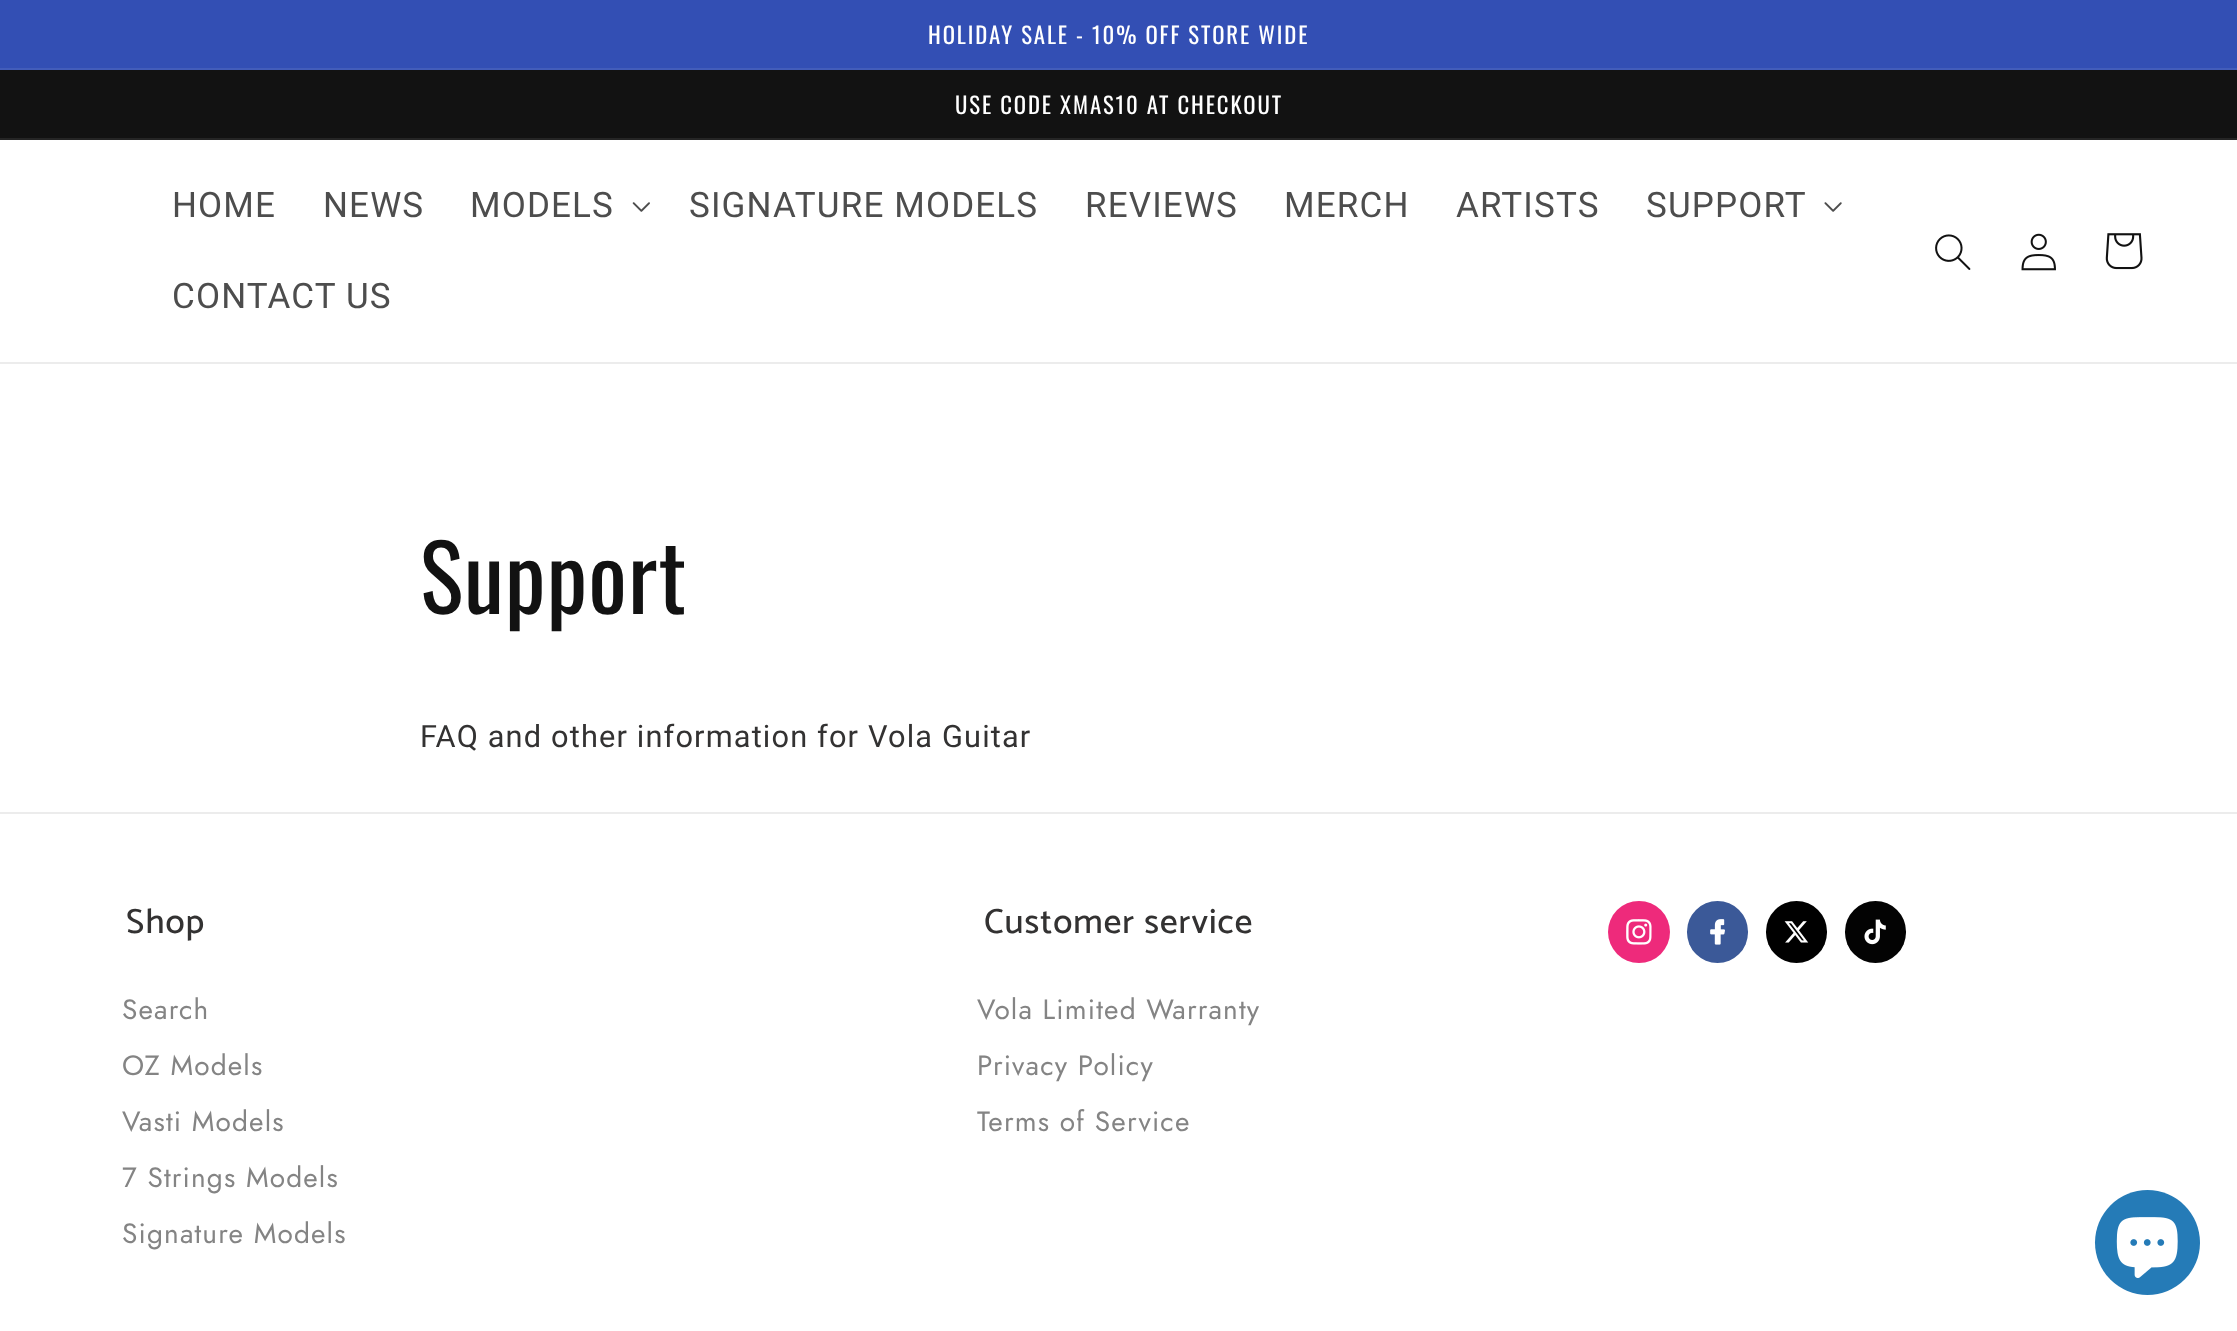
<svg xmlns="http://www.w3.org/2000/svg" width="2237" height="1331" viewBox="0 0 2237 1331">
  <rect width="100%" height="100%" fill="rgb(255,255,255)"/>
  <rect x="0" y="0" width="2237" height="68" fill="rgb(51,79,180)"/>
  <rect x="0" y="68" width="2237" height="2" fill="rgb(67,93,186)"/>
  <text x="928" y="44" font-family="Oswald" font-size="22.75" letter-spacing="1.9" fill="rgb(255,255,255)">HOLIDAY SALE - 10% OFF STORE WIDE</text>
  <rect x="0" y="70" width="2237" height="68" fill="rgb(18,18,18)"/>
  <rect x="0" y="138" width="2237" height="2" fill="rgb(37,37,37)"/>
  <text x="955" y="114" font-family="Oswald" font-size="22.75" letter-spacing="1.9" fill="rgb(255,255,255)">USE CODE XMAS10 AT CHECKOUT</text>
  <rect x="0" y="362" width="2237" height="2" fill="rgb(236,236,236)"/>
  <g font-family="Roboto" font-size="35" letter-spacing="1.15" fill="rgb(77,77,77)">
    <text x="172" y="217">HOME</text>
    <text x="323" y="217">NEWS</text>
    <text x="470" y="217">MODELS</text>
  </g>
  <image x="632" y="202" width="18" height="10" href="pic1.png"/>
  <g font-family="Roboto" font-size="35" letter-spacing="1.15" fill="rgb(77,77,77)">
    <text x="689" y="217">SIGNATURE MODELS</text>
    <text x="1085" y="217">REVIEWS</text>
    <text x="1284" y="217">MERCH</text>
    <text x="1456" y="217">ARTISTS</text>
    <text x="1646" y="217">SUPPORT</text>
  </g>
  <image x="1824" y="202" width="18" height="10" href="pic2.png"/>
  <text x="172" y="308" font-family="Roboto" font-size="35" letter-spacing="1.15" fill="rgb(77,77,77)">CONTACT US</text>
  <image x="1935" y="234" width="36" height="36" href="pic3.png"/>
  <image x="2021" y="233" width="35" height="38" href="pic4.png"/>
  <image x="2105" y="233" width="38" height="37" href="pic5.png"/>
  <text x="420" y="614" font-family="Oswald" font-size="91" letter-spacing="1" fill="rgb(18,18,18)">Support</text>
  <text x="420" y="747" font-family="Roboto" font-size="30.75" letter-spacing="1.15" fill="rgb(51,50,50)">FAQ and other information for Vola Guitar</text>
  <rect x="0" y="812" width="2237" height="2" fill="rgb(236,236,236)"/>
  <text x="126" y="933" font-family="Catamaran" font-size="35" font-weight="500" letter-spacing="1" fill="rgb(51,50,50)">Shop</text>
  <g font-family="Jost" font-size="28" letter-spacing="1.15" fill="rgb(132,132,132)">
    <text x="122" y="1019">Search</text>
    <text x="122" y="1075">OZ Models</text>
    <text x="122" y="1131">Vasti Models</text>
    <text x="122" y="1187">7 Strings Models</text>
    <text x="122" y="1243">Signature Models</text>
  </g>
  <text x="984" y="933" font-family="Catamaran" font-size="35" font-weight="500" letter-spacing="1" fill="rgb(51,50,50)">Customer service</text>
  <g font-family="Jost" font-size="28" letter-spacing="1.15" fill="rgb(132,132,132)">
    <text x="977" y="1019">Vola Limited Warranty</text>
    <text x="977" y="1075">Privacy Policy</text>
    <text x="977" y="1131">Terms of Service</text>
  </g>
  <circle cx="1639" cy="932" r="31" fill="rgb(238,42,123)"/>
  <image x="1626" y="919" width="26" height="26" href="pic6.png"/>
  <rect x="1687" y="901" width="61" height="62" rx="30.5" fill="rgb(59,89,152)"/>
  <image x="1710" y="919" width="15" height="26" href="pic7.png"/>
  <rect x="1766" y="901" width="61" height="62" rx="30.5" fill="rgb(0,0,0)"/>
  <image x="1784" y="921" width="25" height="22" href="pic8.png"/>
  <rect x="1845" y="901" width="61" height="62" rx="30.5" fill="rgb(3,3,3)"/>
  <image x="1864" y="919" width="22" height="26" href="pic9.png"/>
  <circle cx="2147.5" cy="1242.5" r="52.5" fill="rgb(37,123,183)"/>
  <image x="2116" y="1217" width="62" height="61" href="pic10.png"/>
</svg>
